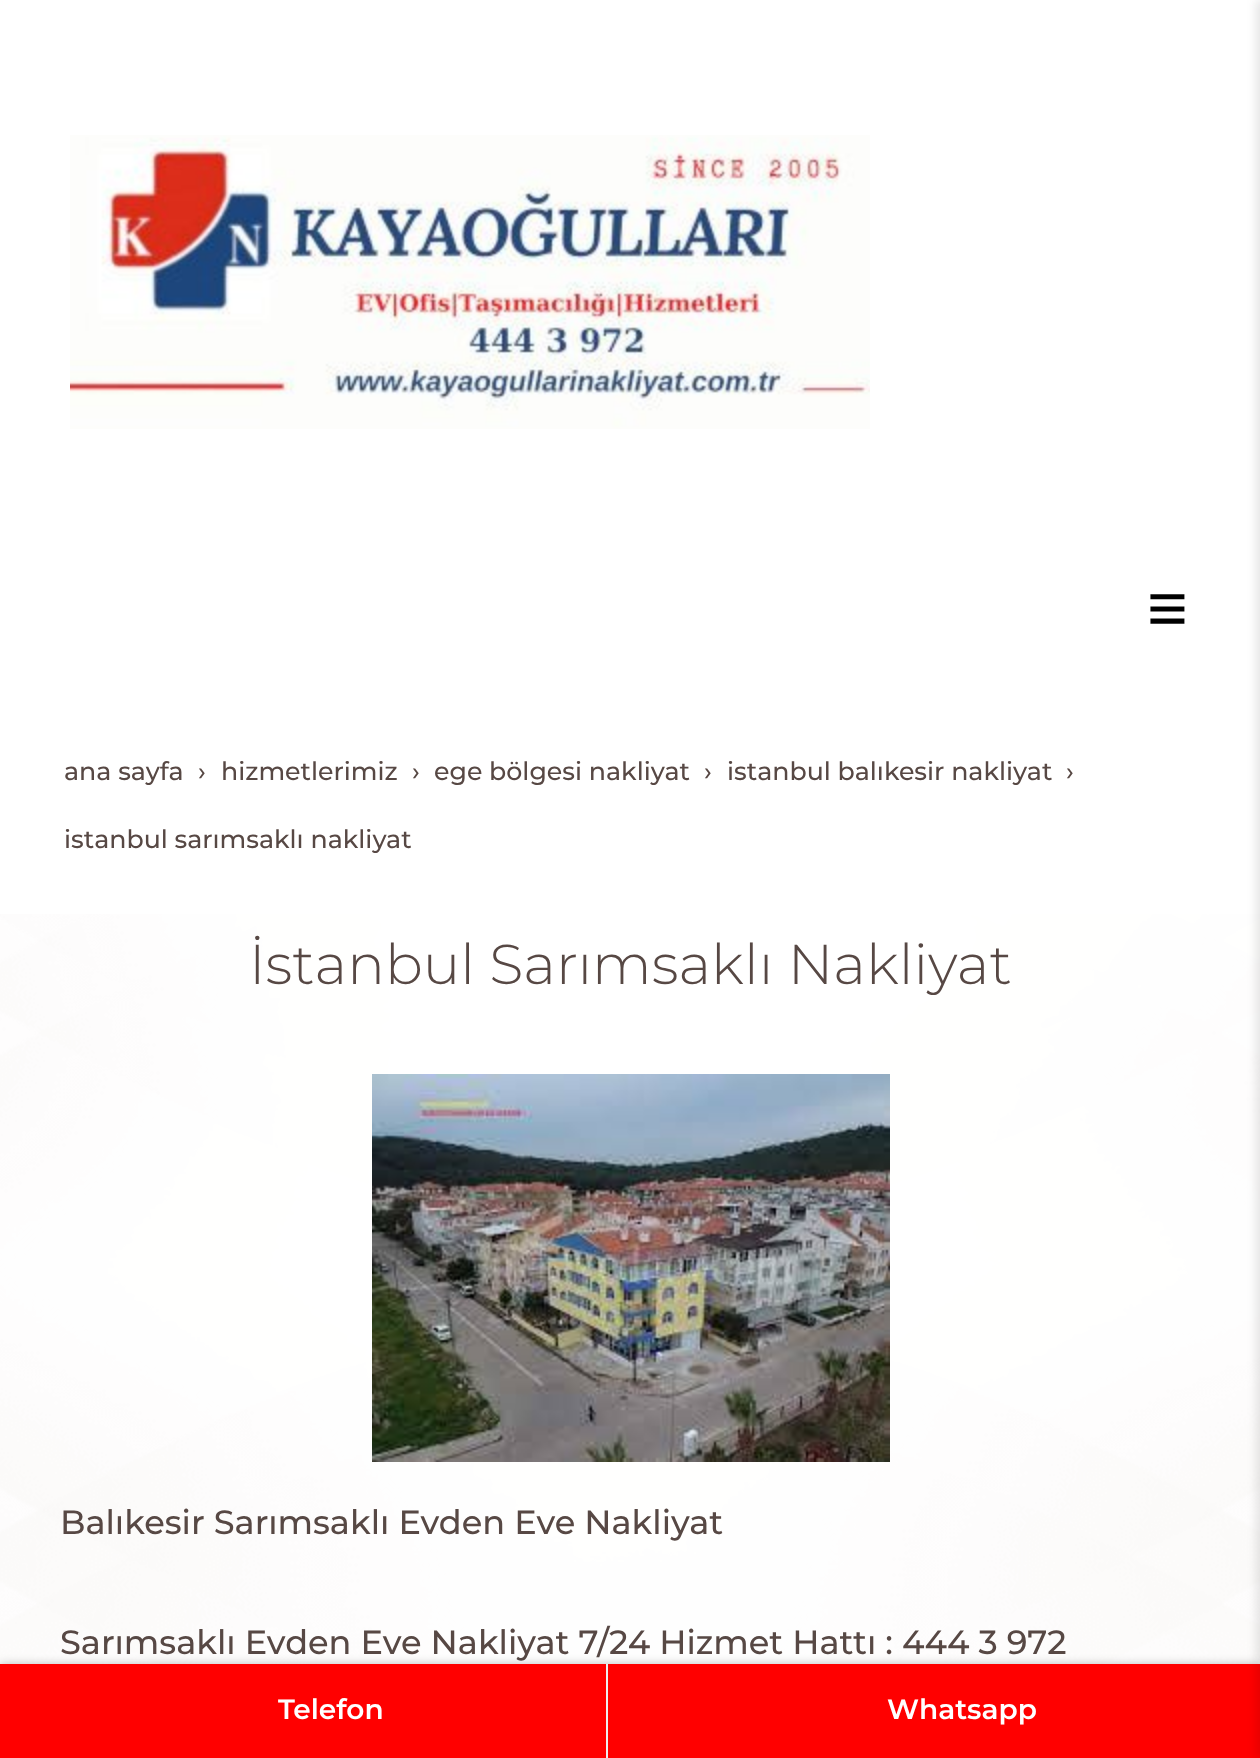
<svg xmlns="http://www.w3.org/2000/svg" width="1260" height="1758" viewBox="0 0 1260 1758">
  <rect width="100%" height="100%" fill="rgb(255,255,255)"/>
  <image x="70" y="135" width="800" height="294" href="pic1.png"/>
  <text x="1147" y="632" font-family="Liberation Sans" font-size="70" fill="rgb(0,0,0)">≡</text>
  <image x="0" y="914" width="1260" height="750" href="pic2.png"/>
  <g font-family="Montserrat" font-size="25.25" font-weight="500" fill="rgb(87,72,68)">
    <text x="64" y="780">ana sayfa</text>
    <text x="198" y="780">›</text>
    <text x="221" y="780">hizmetlerimiz</text>
    <text x="412" y="780">›</text>
    <text x="434" y="780">ege bölgesi nakliyat</text>
    <text x="704" y="780">›</text>
    <text x="727" y="780">istanbul balıkesir nakliyat</text>
    <text x="1066" y="780">›</text>
    <text x="64" y="848">istanbul sarımsaklı nakliyat</text>
  </g>
  <text x="249" y="984" font-family="Montserrat" font-size="56" font-weight="300" fill="rgb(87,72,68)">İstanbul Sarımsaklı Nakliyat</text>
  <image x="372" y="1074" width="518" height="388" href="pic3.png"/>
  <g font-family="Montserrat" font-size="33.6" font-weight="500" fill="rgb(87,72,68)">
    <text x="60" y="1534">Balıkesir Sarımsaklı Evden Eve Nakliyat</text>
    <text x="60" y="1654">Sarımsaklı Evden Eve Nakliyat 7/24 Hizmet Hattı : 444 3 972</text>
  </g>
  <rect x="0" y="1664" width="1260" height="94" fill="rgba(0,0,0,0.25)" filter="blur(5px)"/>
  <rect x="0" y="1664" width="1260" height="94" fill="rgb(255,0,0)"/>
  <rect x="606" y="1664" width="2" height="94" fill="rgb(238,238,238)"/>
  <g font-family="Montserrat" font-size="28" font-weight="600" fill="rgb(255,255,255)">
    <text x="278" y="1719">Telefon</text>
    <text x="887" y="1719">Whatsapp</text>
  </g>
  <rect x="1256" y="0" width="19" height="1758" fill="rgba(0,0,0,0.1)" filter="blur(5px)"/>
</svg>
